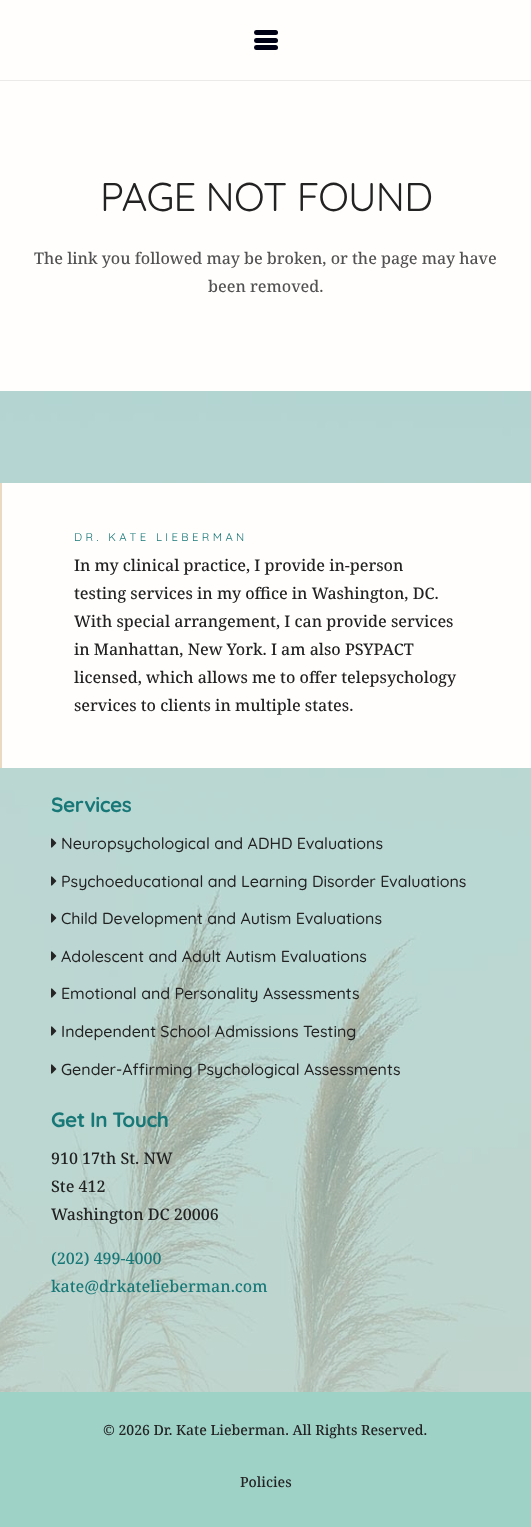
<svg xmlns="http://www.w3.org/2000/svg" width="531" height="1527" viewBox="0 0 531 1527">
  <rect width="100%" height="100%" fill="rgb(255,254,252)"/>
  <rect x="0" y="80" width="531" height="1" fill="rgb(235,234,232)"/>
  <rect x="254" y="38" width="24" height="5" rx="2.5" fill="rgb(0,0,22)"/>
  <rect x="254" y="30" width="24" height="5" rx="2.5" fill="rgb(0,0,22)"/>
  <rect x="254" y="45" width="24" height="5" rx="2.5" fill="rgb(0,0,22)"/>
  <text x="100" y="211" font-family="Quicksand" font-size="40" letter-spacing="-0.75" fill="rgb(34,34,34)">PAGE NOT FOUND</text>
  <g font-family="Noto Serif" font-size="16" font-weight="500" fill="rgb(82,82,82)">
    <text x="34" y="264">The link you followed may be broken, or the page may have</text>
    <text x="208" y="292">been removed.</text>
  </g>
  <image x="0" y="391" width="531" height="1001" href="pic1.png"/>
  <rect x="2" y="483" width="529" height="285" fill="rgb(255,254,252)"/>
  <rect x="0" y="483" width="2" height="285" fill="rgb(233,218,193)"/>
  <text x="74" y="541" font-family="Quicksand" font-size="11.25" letter-spacing="3.4" fill="rgb(23,120,119)">DR. KATE LIEBERMAN</text>
  <g font-family="Noto Serif" font-size="16" font-weight="500" fill="rgb(34,34,34)">
    <text>
      <tspan x="74" y="571">In my clinical practice, I provide in-person</tspan>
      <tspan x="74" y="599">testing services in my office in Washington, DC.</tspan>
      <tspan x="74" y="627">With special arrangement, I can provide services</tspan>
      <tspan x="74" y="655">in Manhattan, New York. I am also PSYPACT</tspan>
      <tspan x="74" y="683">licensed, which allows me to offer telepsychology</tspan>
      <tspan x="74" y="711">services to clients in multiple states.</tspan>
    </text>
  </g>
  <text x="51" y="812" font-family="Quicksand" font-size="20.75" font-weight="bold" letter-spacing="-0.5" fill="rgb(23,120,119)">Services</text>
  <image x="51" y="838" width="6" height="10" href="pic2.png"/>
  <text x="61" y="849" font-family="Quicksand" font-size="16" font-weight="500" fill="rgb(34,34,34)">Neuropsychological and ADHD Evaluations</text>
  <image x="51" y="876" width="6" height="10" href="pic2.png"/>
  <text x="61" y="887" font-family="Quicksand" font-size="16" font-weight="500" fill="rgb(34,34,34)">Psychoeducational and Learning Disorder Evaluations</text>
  <image x="51" y="913" width="6" height="10" href="pic2.png"/>
  <text x="61" y="924" font-family="Quicksand" font-size="16" font-weight="500" fill="rgb(34,34,34)">Child Development and Autism Evaluations</text>
  <image x="51" y="951" width="6" height="10" href="pic3.png"/>
  <text x="61" y="962" font-family="Quicksand" font-size="16" font-weight="500" fill="rgb(34,34,34)">Adolescent and Adult Autism Evaluations</text>
  <image x="51" y="988" width="6" height="10" href="pic4.png"/>
  <text x="61" y="999" font-family="Quicksand" font-size="16" font-weight="500" fill="rgb(34,34,34)">Emotional and Personality Assessments</text>
  <image x="51" y="1026" width="6" height="10" href="pic4.png"/>
  <text x="61" y="1037" font-family="Quicksand" font-size="16" font-weight="500" fill="rgb(34,34,34)">Independent School Admissions Testing</text>
  <image x="51" y="1064" width="6" height="10" href="pic4.png"/>
  <text x="61" y="1075" font-family="Quicksand" font-size="16" font-weight="500" fill="rgb(34,34,34)">Gender-Affirming Psychological Assessments</text>
  <text x="51" y="1127" font-family="Quicksand" font-size="20.75" font-weight="bold" letter-spacing="-0.5" fill="rgb(23,120,119)">Get In Touch</text>
  <g font-family="Noto Serif" font-size="16" font-weight="500" fill="rgb(34,34,34)">
    <text>
      <tspan x="51" y="1164">910 17th St. NW</tspan>
      <tspan x="51" y="1192">Ste 412</tspan>
      <tspan x="51" y="1220">Washington DC 20006</tspan>
    </text>
  </g>
  <g font-family="Noto Serif" font-size="16" font-weight="500" fill="rgb(23,120,119)">
    <text>
      <tspan x="51" y="1264">(202) 499-4000</tspan>
      <tspan x="51" y="1292">kate@drkatelieberman.com</tspan>
    </text>
  </g>
  <rect x="0" y="1392" width="531" height="135" fill="rgb(158,210,198)"/>
  <g font-family="Noto Serif" font-size="14" font-weight="500" fill="rgb(34,34,34)">
    <text x="103" y="1435">© 2026 Dr. Kate Lieberman. All Rights Reserved.</text>
    <text x="240" y="1487">Policies</text>
  </g>
</svg>
